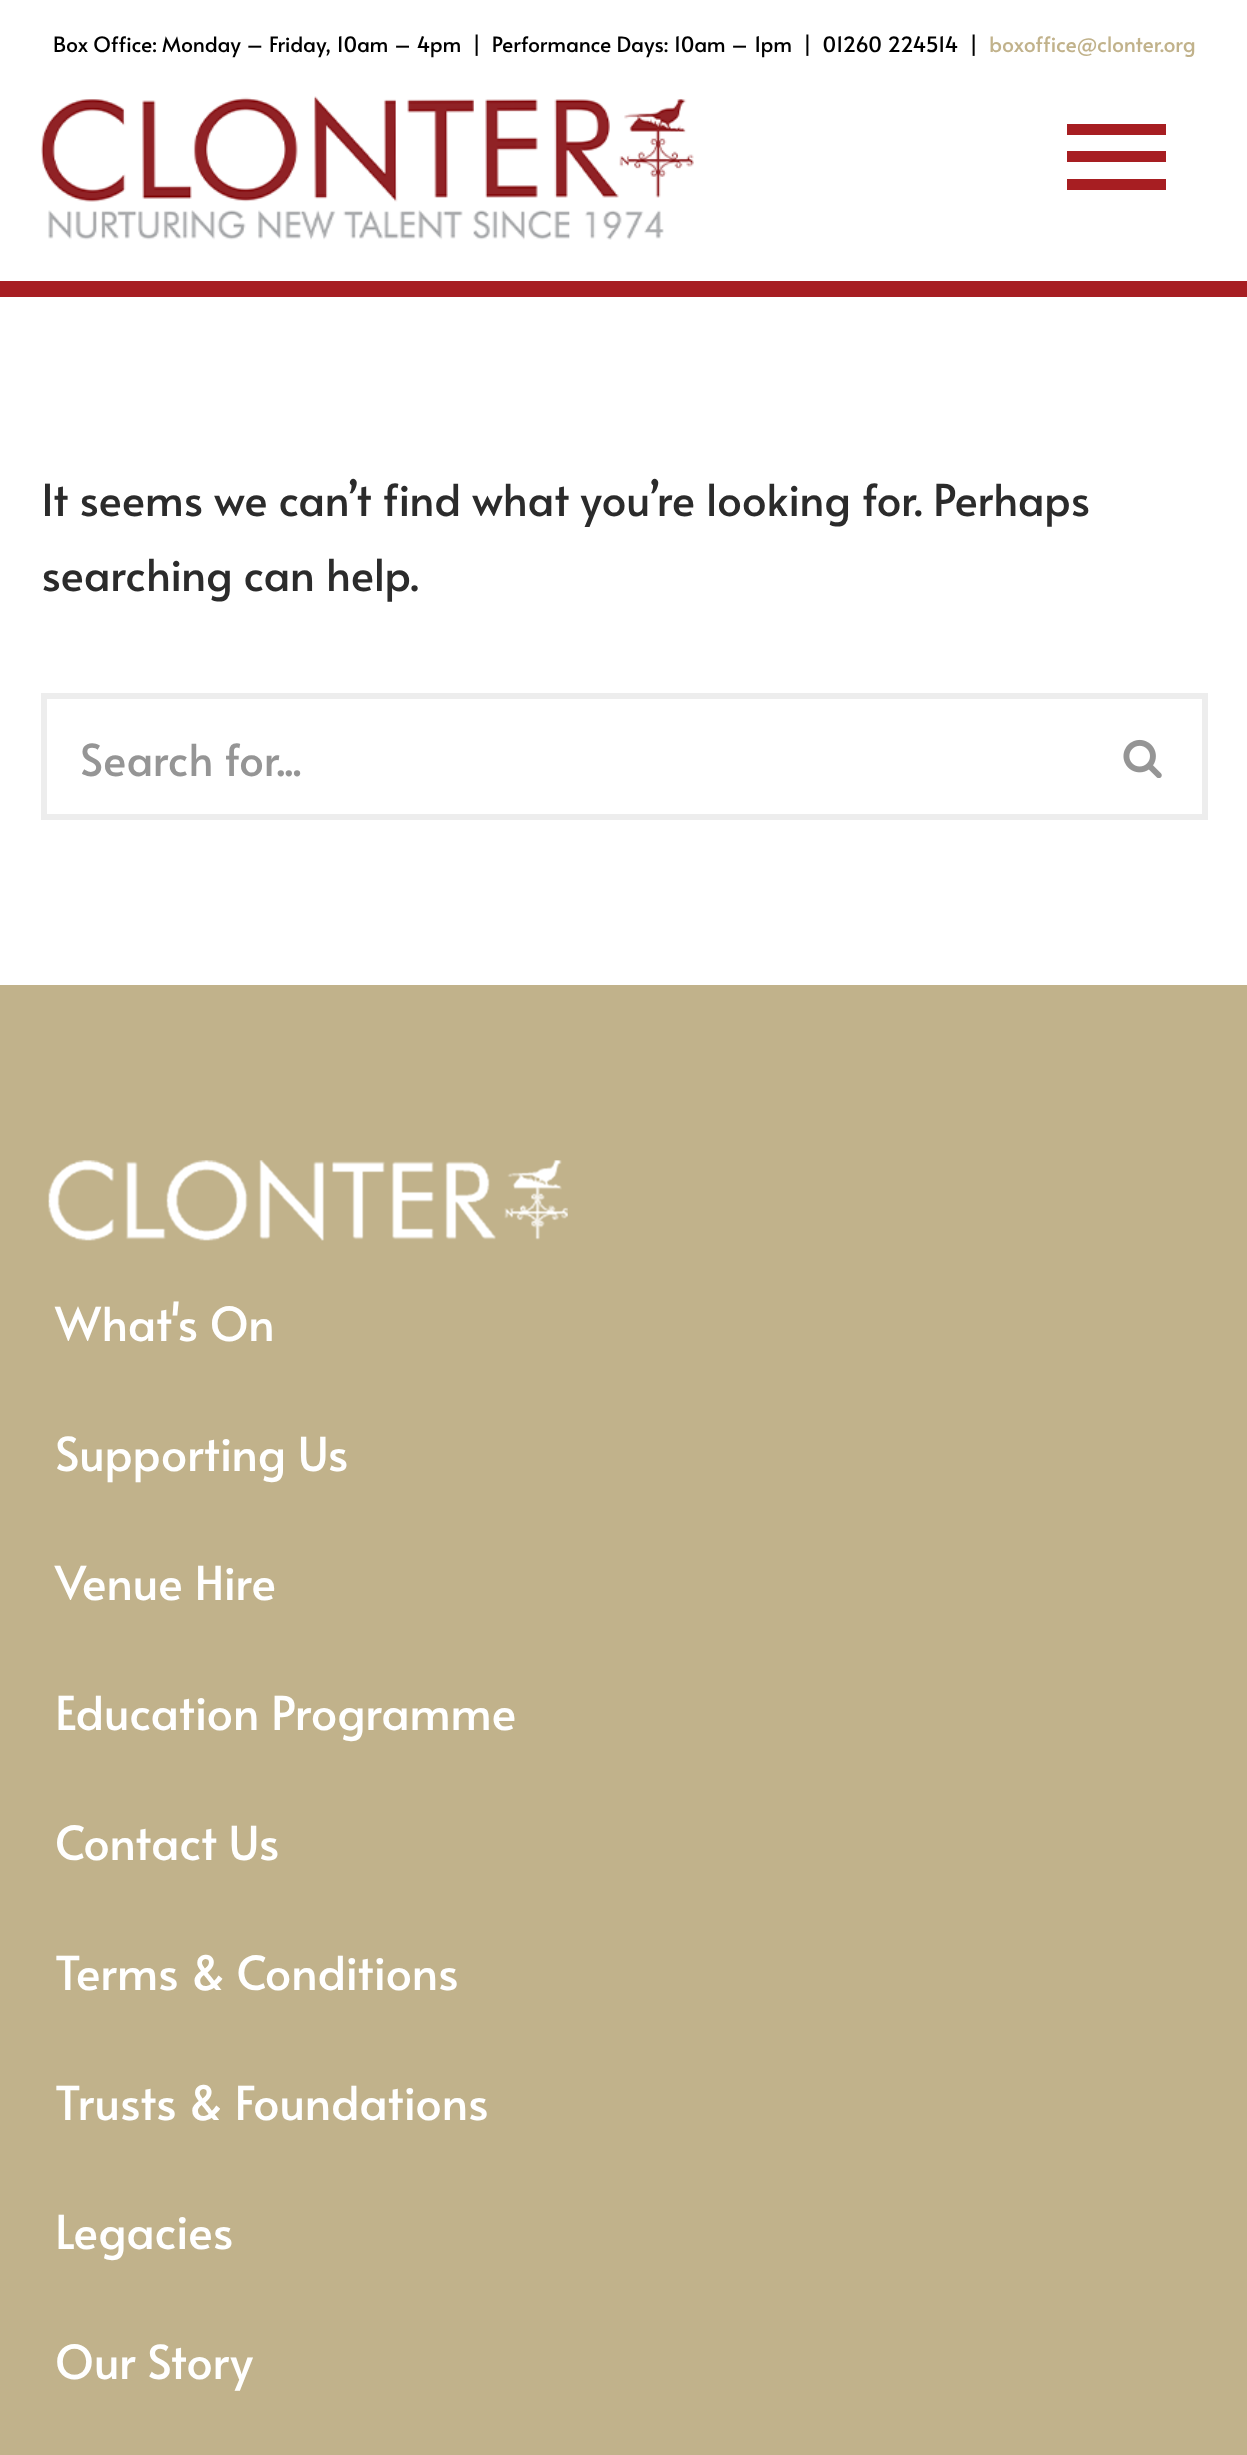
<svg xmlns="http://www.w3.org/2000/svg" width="1247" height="2455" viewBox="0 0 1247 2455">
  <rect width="100%" height="100%" fill="rgb(255,255,255)"/>
  <text x="53" y="52" font-family="Alata" font-size="21.2" fill="rgb(0,0,0)" xml:space="preserve">Box Office: Monday – Friday, 10am – 4pm  |  Performance Days: 10am – 1pm  |  01260 224514  |</text>
  <text x="989" y="52" font-family="Alata" font-size="21.2" fill="rgb(193,178,139)">boxoffice@clonter.org</text>
  <rect x="0" y="281" width="1247" height="16" fill="rgb(167,30,34)"/>
  <image x="41" y="96" width="653" height="144" href="pic1.png"/>
  <rect x="1067" y="124" width="99" height="11" fill="rgb(167,30,34)"/>
  <rect x="1067" y="151" width="99" height="11" fill="rgb(167,30,34)"/>
  <rect x="1067" y="179" width="99" height="11" fill="rgb(167,30,34)"/>
  <g font-family="Alata" font-size="44" fill="rgb(43,43,43)">
    <text>
      <tspan x="41" y="516">It seems we can’t find what you’re looking for. Perhaps</tspan>
      <tspan x="41" y="591">searching can help.</tspan>
    </text>
  </g>
  <rect x="41" y="693" width="1166" height="6" fill="rgb(237,237,237)"/>
  <rect x="41" y="814" width="1043" height="6" fill="rgb(237,237,237)"/>
  <rect x="41" y="693" width="6" height="127" fill="rgb(237,237,237)"/>
  <text x="80" y="776" font-family="Alata" font-size="44" fill="rgb(149,149,149)">Search for...</text>
  <rect x="1202" y="693" width="6" height="127" fill="rgb(237,237,237)"/>
  <rect x="1084" y="814" width="123" height="6" fill="rgb(237,237,237)"/>
  <image x="1123" y="739" width="39" height="39" href="pic2.png"/>
  <rect x="0" y="985" width="1247" height="1470" fill="rgb(193,178,139)"/>
  <image x="48" y="1160" width="520" height="81" href="pic3.png"/>
  <g font-family="Alata" font-size="46.75" fill="rgb(255,255,255)">
    <text x="55" y="1341">What's On</text>
    <text x="55" y="1471">Supporting Us</text>
    <text x="55" y="1600">Venue Hire</text>
    <text x="55" y="1730">Education Programme</text>
    <text x="55" y="1860">Contact Us</text>
    <text x="55" y="1990">Terms &amp; Conditions</text>
    <text x="55" y="2120">Trusts &amp; Foundations</text>
    <text x="55" y="2249">Legacies</text>
    <text x="55" y="2379">Our Story</text>
  </g>
</svg>
